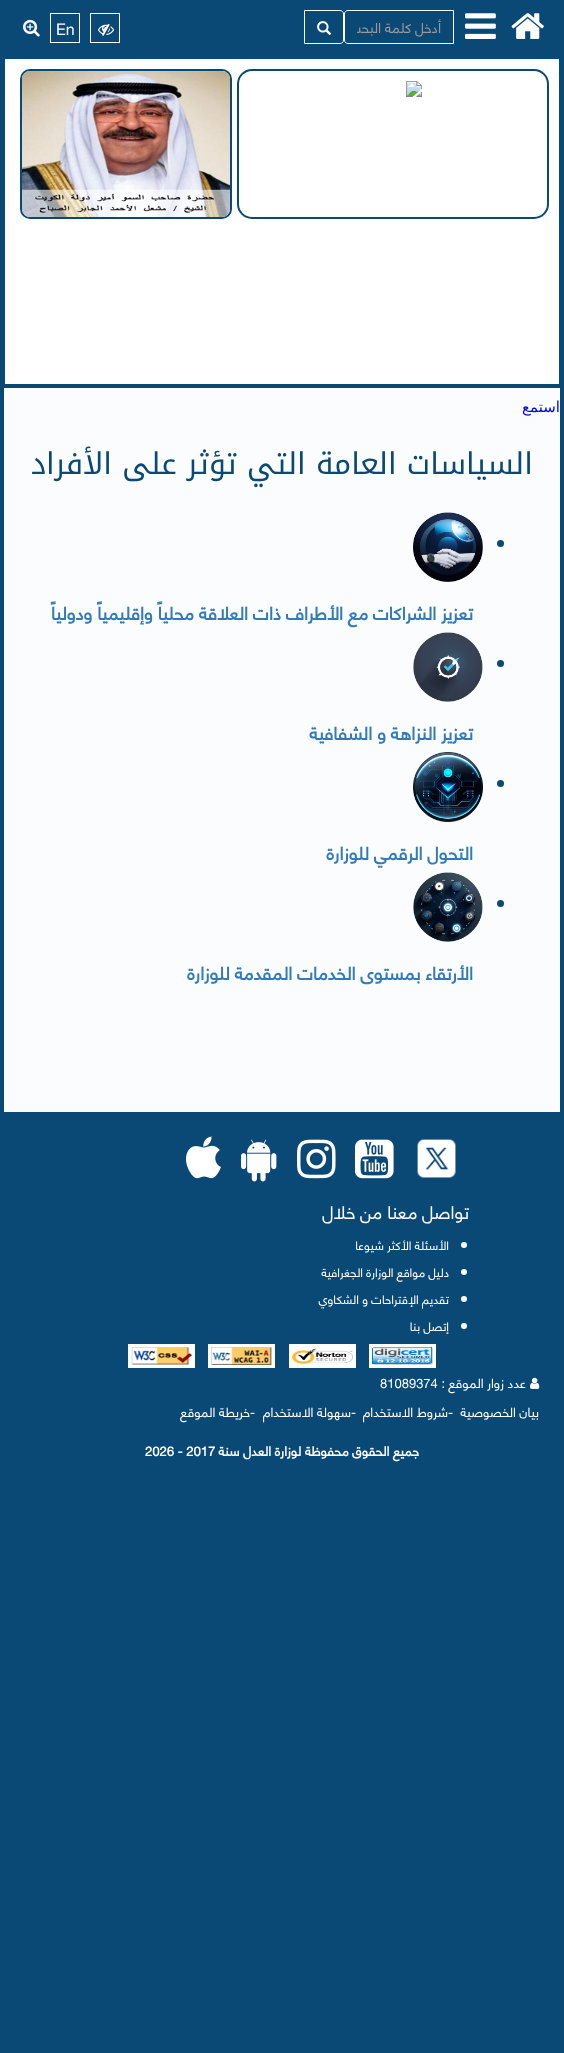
<svg xmlns="http://www.w3.org/2000/svg" width="564" height="2053" viewBox="0 0 564 2053">
  <defs>
    <clipPath id="clip1"><rect x="357" y="12" width="84" height="30"/></clipPath>
  </defs>
  <rect width="100%" height="100%" fill="rgb(10,73,118)"/>
  <image x="511" y="13" width="33" height="26" href="pic1.png"/>
  <image x="465" y="13" width="31" height="26" href="pic2.png"/>
  <path d="M348 12H453V11H348C346 11 345 12 345 14V15C345 13 346 12 348 12Z" fill="rgb(9,68,109)"/>
  <path d="M348 10.5H453.5V43.5H348C346 43.5 344.5 42 344.5 40V14C344.5 12 346 10.5 348 10.5Z" fill="none" stroke="rgb(255,255,255)"/>
  <g clip-path="url(#clip1)">
    <text x="441" y="33" font-family="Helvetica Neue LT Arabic" font-size="14" direction="rtl" fill="rgb(153,153,153)">أدخل كلمة البحث</text>
  </g>
  <path d="M304.5 10.5H340C342 10.5 343.5 12 343.5 14V40C343.5 42 342 43.5 340 43.5H304.5Z" fill="none" stroke="rgb(255,255,255)"/>
  <image x="317" y="21" width="15" height="14" href="pic3.png"/>
  <rect x="90.5" y="13.5" width="29" height="29" fill="none" stroke="rgb(255,255,255)"/>
  <image x="98" y="23" width="16" height="13" href="pic4.png"/>
  <rect x="50.5" y="13.5" width="29" height="29" fill="none" stroke="rgb(255,255,255)"/>
  <text x="56" y="35" font-family="Helvetica Neue LT Arabic" font-size="16" fill="rgb(255,255,255)">En</text>
  <image x="23" y="19" width="17" height="18" href="pic5.png"/>
  <rect x="5" y="59" width="554" height="325" fill="rgb(255,255,255)"/>
  <rect x="238" y="70" width="310" height="148" rx="14" fill="none" stroke="rgb(10,73,118)" stroke-width="2"/>
  <image x="406" y="81" width="16" height="16" href="pic6.png"/>
  <rect x="21" y="70" width="210" height="148" rx="9" fill="none" stroke="rgb(10,73,118)" stroke-width="2"/>
  <image x="22" y="71" width="208" height="146" href="pic7.png"/>
  <rect x="4" y="388" width="556" height="724" fill="rgb(250,252,254)"/>
  <text x="560" y="412" font-family="DejaVu Sans" font-size="15" direction="rtl" fill="rgb(0,0,238)">استمع</text>
  <text x="533" y="474" font-family="Noto Kufi Arabic" font-size="30" direction="rtl" fill="rgb(10,73,118)">السياسات العامة التي تؤثر على الأفراد</text>
  <circle cx="500.5" cy="543.5" r="3.5" fill="rgb(10,73,118)"/>
  <image x="413" y="512" width="70" height="70" href="pic8.png"/>
  <text x="473" y="620" font-family="Helvetica Neue LT Arabic" font-size="18" font-weight="bold" direction="rtl" fill="rgb(51,122,183)">تعزيز الشراكات مع الأطراف ذات العلاقة محلياً وإقليمياً ودولياً</text>
  <circle cx="500.5" cy="663.5" r="3.5" fill="rgb(10,73,118)"/>
  <image x="413" y="632" width="70" height="70" href="pic9.png"/>
  <text x="473" y="740" font-family="Helvetica Neue LT Arabic" font-size="18" font-weight="bold" direction="rtl" fill="rgb(51,122,183)">تعزيز النزاهة و الشفافية</text>
  <circle cx="500.5" cy="783.5" r="3.5" fill="rgb(10,73,118)"/>
  <image x="413" y="752" width="70" height="70" href="pic10.png"/>
  <text x="473" y="860" font-family="Helvetica Neue LT Arabic" font-size="18" font-weight="bold" direction="rtl" fill="rgb(51,122,183)">التحول الرقمي للوزارة</text>
  <circle cx="500.5" cy="903.5" r="3.5" fill="rgb(10,73,118)"/>
  <image x="413" y="872" width="70" height="70" href="pic11.png"/>
  <text x="473" y="980" font-family="Helvetica Neue LT Arabic" font-size="18" font-weight="bold" direction="rtl" fill="rgb(51,122,183)">الأرتقاء بمستوى الخدمات المقدمة للوزارة</text>
  <image x="417" y="1139" width="39" height="39" href="pic12.png"/>
  <image x="355" y="1139" width="39" height="40" href="pic13.png"/>
  <image x="297" y="1139" width="39" height="40" href="pic14.png"/>
  <image x="241" y="1139" width="36" height="43" href="pic15.png"/>
  <image x="186" y="1136" width="35" height="43" href="pic16.png"/>
  <text x="469" y="1219" font-family="Helvetica Neue LT Arabic" font-size="18" direction="rtl" fill="rgb(255,255,255)">تواصل معنا من خلال</text>
  <circle cx="464" cy="1245" r="3" fill="rgb(255,255,255)"/>
  <text x="449" y="1250" font-family="Helvetica Neue LT Arabic" font-size="12" direction="rtl" fill="rgb(255,255,255)">الأسئلة الأكثر شيوعا</text>
  <circle cx="464" cy="1272" r="3" fill="rgb(255,255,255)"/>
  <text x="449" y="1277" font-family="Helvetica Neue LT Arabic" font-size="12" direction="rtl" fill="rgb(255,255,255)">دليل مواقع الوزارة الجغرافية</text>
  <circle cx="464" cy="1299" r="3" fill="rgb(255,255,255)"/>
  <text x="449" y="1304" font-family="Helvetica Neue LT Arabic" font-size="12" direction="rtl" fill="rgb(255,255,255)">تقديم الإقتراحات و الشكاوي</text>
  <circle cx="464" cy="1326" r="3" fill="rgb(255,255,255)"/>
  <text x="449" y="1331" font-family="Helvetica Neue LT Arabic" font-size="12" direction="rtl" fill="rgb(255,255,255)">إتصل بنا</text>
  <rect x="369" y="1344" width="67" height="24" fill="rgb(255,255,255)"/>
  <rect x="289" y="1344" width="67" height="24" fill="rgb(255,255,255)"/>
  <rect x="208" y="1344" width="67" height="24" fill="rgb(255,255,255)"/>
  <rect x="128" y="1344" width="67" height="24" fill="rgb(255,255,255)"/>
  <image x="372" y="1347" width="61" height="18" href="pic17.png"/>
  <image x="292" y="1348" width="61" height="16" href="pic18.png"/>
  <image x="211" y="1347" width="61" height="18" href="pic19.png"/>
  <image x="131" y="1347" width="61" height="18" href="pic20.png"/>
  <image x="530" y="1377" width="10" height="12" href="pic21.png"/>
  <text x="526" y="1388" font-family="Helvetica Neue LT Arabic" font-size="13" direction="rtl" fill="rgb(255,255,255)">عدد زوار الموقع</text>
  <text x="380" y="1388" font-family="Helvetica Neue LT Arabic" font-size="13" fill="rgb(255,255,255)">81089374 :</text>
  <text x="539" y="1417" font-family="Helvetica Neue LT Arabic" font-size="13" direction="rtl" fill="rgb(255,255,255)">بيان الخصوصية</text>
  <text x="448" y="1417" font-family="Helvetica Neue LT Arabic" font-size="13" fill="rgb(255,255,255)">-</text>
  <text x="448" y="1417" font-family="Helvetica Neue LT Arabic" font-size="13" direction="rtl" fill="rgb(255,255,255)">شروط الاستخدام</text>
  <text x="351" y="1417" font-family="Helvetica Neue LT Arabic" font-size="13" fill="rgb(255,255,255)">-</text>
  <text x="351" y="1417" font-family="Helvetica Neue LT Arabic" font-size="13" direction="rtl" fill="rgb(255,255,255)">سهولة الاستخدام</text>
  <text x="250" y="1417" font-family="Helvetica Neue LT Arabic" font-size="13" fill="rgb(255,255,255)">-</text>
  <text x="250" y="1417" font-family="Helvetica Neue LT Arabic" font-size="13" direction="rtl" fill="rgb(255,255,255)">خريطة الموقع</text>
  <text x="419" y="1456" font-family="Helvetica Neue LT Arabic" font-size="13" font-weight="bold" direction="rtl" fill="rgb(255,255,255)">جميع الحقوق محفوظة لوزارة العدل سنة</text>
  <text x="145" y="1456" font-family="Helvetica Neue LT Arabic" font-size="13" font-weight="bold" fill="rgb(255,255,255)">2026 - 2017</text>
</svg>
